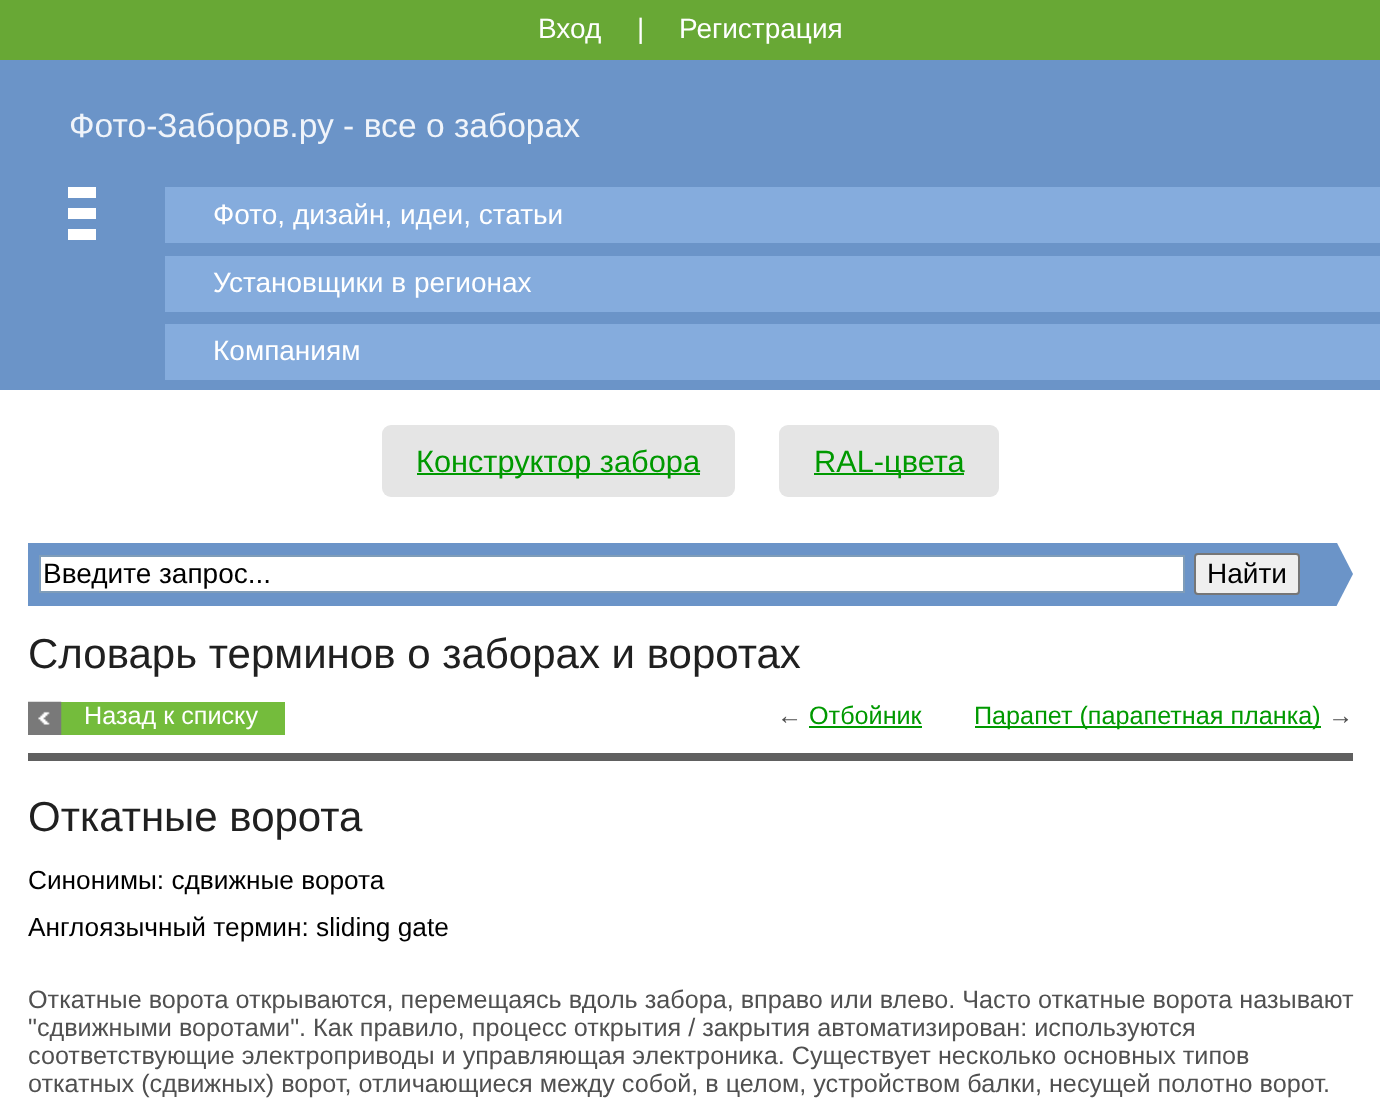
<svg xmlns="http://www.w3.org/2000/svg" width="1380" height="1109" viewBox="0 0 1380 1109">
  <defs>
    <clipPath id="clip1"><rect x="1300" y="543" width="53" height="63"/></clipPath>
  </defs>
  <rect width="100%" height="100%" fill="rgb(255,255,255)"/>
  <rect x="0" y="0" width="1380" height="60" fill="rgb(104,168,53)"/>
  <g font-family="Liberation Sans" font-size="28" fill="rgb(255,255,255)">
    <text x="538" y="38">Вход</text>
    <text x="637" y="38">|</text>
    <text x="679" y="38">Регистрация</text>
  </g>
  <rect x="0" y="60" width="1380" height="330" fill="rgb(107,148,200)"/>
  <text x="69" y="137" font-family="Liberation Sans" font-size="33.6" fill="rgb(240,244,250)">Фото-Заборов.ру - все о заборах</text>
  <rect x="68" y="187" width="28" height="11" fill="rgb(255,255,255)"/>
  <rect x="68" y="208" width="28" height="11" fill="rgb(255,255,255)"/>
  <rect x="68" y="229" width="28" height="11" fill="rgb(255,255,255)"/>
  <rect x="165" y="187" width="1215" height="56" fill="rgb(133,172,221)"/>
  <text x="213" y="224" font-family="Liberation Sans" font-size="28" fill="rgb(255,255,255)">Фото, дизайн, идеи, статьи</text>
  <rect x="165" y="256" width="1215" height="56" fill="rgb(133,172,221)"/>
  <text x="213" y="292" font-family="Liberation Sans" font-size="28" fill="rgb(255,255,255)">Установщики в регионах</text>
  <rect x="165" y="324" width="1215" height="56" fill="rgb(133,172,221)"/>
  <text x="213" y="360" font-family="Liberation Sans" font-size="28" fill="rgb(255,255,255)">Компаниям</text>
  <rect x="382" y="425" width="353" height="72" rx="9" fill="rgb(229,229,229)"/>
  <rect x="417" y="473" width="283" height="2" fill="rgb(0,153,0)"/>
  <text x="416" y="472" font-family="Liberation Sans" font-size="30.75" fill="rgb(0,153,0)">Конструктор забора</text>
  <rect x="779" y="425" width="220" height="72" rx="9" fill="rgb(229,229,229)"/>
  <rect x="814" y="473" width="150" height="2" fill="rgb(0,153,0)"/>
  <text x="814" y="472" font-family="Liberation Sans" font-size="30.75" fill="rgb(0,153,0)">RAL-цвета</text>
  <rect x="28" y="543" width="1272" height="63" fill="rgb(107,148,200)"/>
  <rect x="40" y="556" width="1144" height="36" fill="rgb(255,255,255)" stroke="rgb(127,157,185)" stroke-width="2"/>
  <text x="43" y="583" font-family="Liberation Sans" font-size="28" fill="rgb(0,0,0)">Введите запрос...</text>
  <rect x="1195" y="554" width="104" height="40" rx="3" fill="rgb(239,239,239)" stroke="rgb(118,118,118)" stroke-width="2"/>
  <text x="1207" y="583" font-family="Liberation Sans" font-size="28" fill="rgb(0,0,0)">Найти</text>
  <g clip-path="url(#clip1)">
    <path d="M1300 677V471L1353 574Z" fill="rgb(107,148,200)"/>
  </g>
  <text x="28" y="668" font-family="Liberation Sans" font-size="42" fill="rgb(32,32,32)">Словарь терминов о заборах и воротах</text>
  <rect x="61" y="702" width="224" height="33" fill="rgb(116,188,60)"/>
  <image x="28" y="701" width="34" height="34" href="pic1.png"/>
  <text x="84" y="724" font-family="Liberation Sans" font-size="25.2" fill="rgb(255,255,255)">Назад к списку</text>
  <text x="777" y="724" font-family="Liberation Sans" font-size="25.2" fill="rgb(80,80,80)">←</text>
  <text x="809" y="724" font-family="Liberation Sans" font-size="25.2" fill="rgb(0,153,0)">Отбойник</text>
  <rect x="809" y="726" width="113" height="2" fill="rgb(0,153,0)"/>
  <rect x="975" y="726" width="346" height="2" fill="rgb(0,153,0)"/>
  <text x="974" y="724" font-family="Liberation Sans" font-size="25.2" fill="rgb(0,153,0)">Парапет (парапетная планка)</text>
  <text x="1328" y="724" font-family="Liberation Sans" font-size="25.2" fill="rgb(80,80,80)">→</text>
  <rect x="28" y="753" width="1325" height="8" fill="rgb(96,96,96)"/>
  <text x="28" y="831" font-family="Liberation Sans" font-size="42" fill="rgb(32,32,32)">Откатные ворота</text>
  <g font-family="Liberation Sans" font-size="26.25" fill="rgb(0,0,0)">
    <text>
      <tspan x="28" y="889">Синонимы: сдвижные ворота</tspan>
      <tspan x="28" y="936">Англоязычный термин: sliding gate</tspan>
    </text>
  </g>
  <g font-family="Liberation Sans" font-size="25.2" fill="rgb(80,80,80)">
    <text>
      <tspan x="28" y="1008">Откатные ворота открываются, перемещаясь вдоль забора, вправо или влево. Часто откатные ворота называют</tspan>
      <tspan x="28" y="1036">"сдвижными воротами". Как правило, процесс открытия / закрытия автоматизирован: используются</tspan>
      <tspan x="28" y="1064">соответствующие электроприводы и управляющая электроника. Существует несколько основных типов</tspan>
      <tspan x="28" y="1092">откатных (сдвижных) ворот, отличающиеся между собой, в целом, устройством балки, несущей полотно ворот.</tspan>
    </text>
  </g>
</svg>
